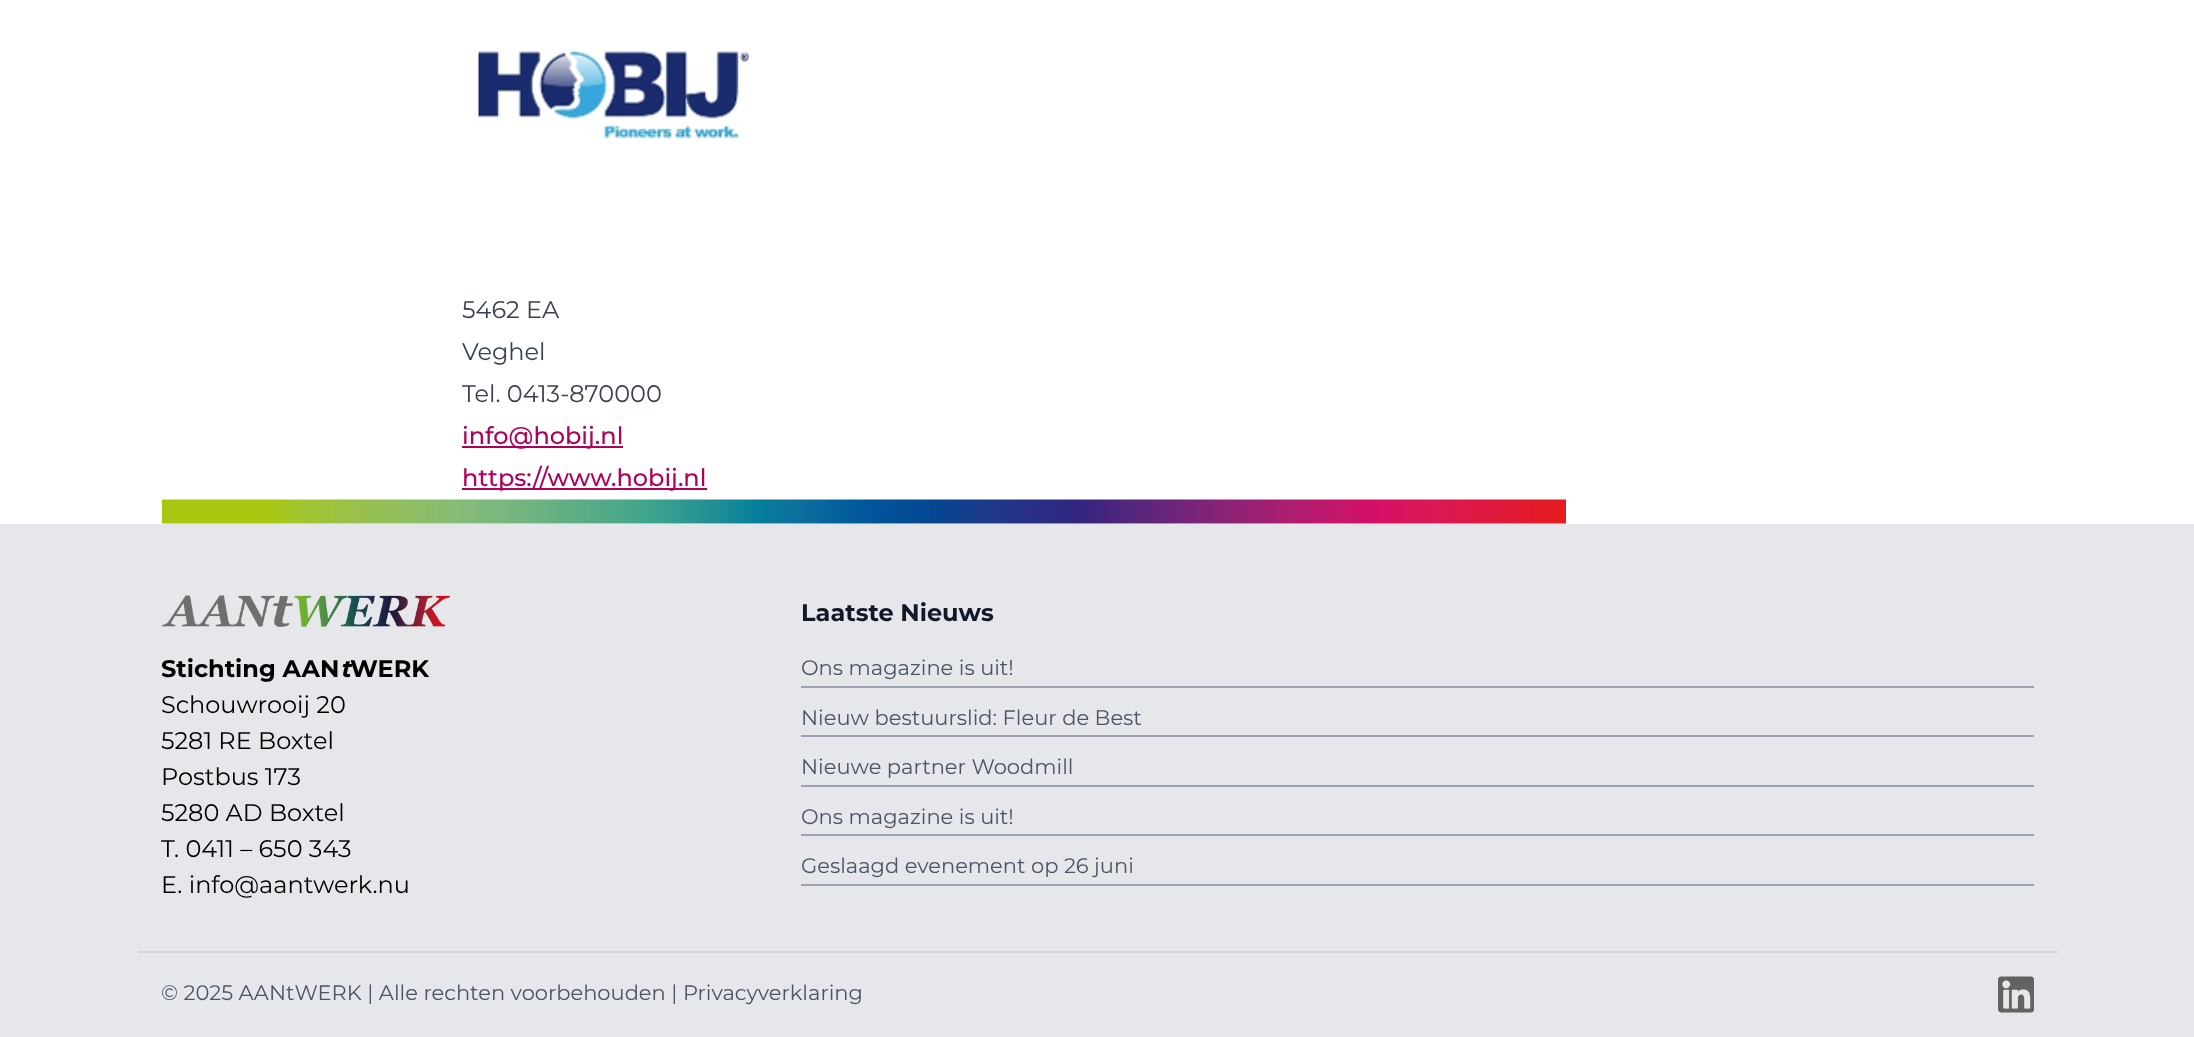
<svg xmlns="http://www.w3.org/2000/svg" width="2194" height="1037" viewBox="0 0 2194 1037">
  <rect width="100%" height="100%" fill="rgb(255,255,255)"/>
  <image x="477" y="50" width="272" height="90" href="pic1.png"/>
  <g font-family="Montserrat" font-size="24" fill="rgb(55,65,81)">
    <text>
      <tspan x="462" y="318">5462 EA</tspan>
      <tspan x="462" y="360">Veghel</tspan>
      <tspan x="462" y="402">Tel. 0413-870000</tspan>
    </text>
  </g>
  <rect x="462" y="446" width="161" height="2" fill="rgb(175,0,93)"/>
  <text x="462" y="444" font-family="Montserrat" font-size="24" font-weight="500" fill="rgb(175,0,93)">info@hobij.nl</text>
  <rect x="462" y="488" width="245" height="2" fill="rgb(175,0,93)"/>
  <text x="462" y="486" font-family="Montserrat" font-size="24" font-weight="500" fill="rgb(175,0,93)">https://www.hobij.nl</text>
  <image x="162" y="499" width="1404" height="25" href="pic2.png"/>
  <rect x="0" y="524" width="2194" height="513" fill="rgb(229,231,235)"/>
  <image x="162" y="595" width="288" height="32" href="pic3.png"/>
  <text x="161" y="677" font-family="Montserrat" font-size="24" font-weight="bold" fill="rgb(0,0,0)">Stichting AAN</text>
  <text x="340" y="677" font-family="Montserrat" font-size="24" font-weight="bold" font-style="italic" fill="rgb(0,0,0)">t</text>
  <text x="350" y="677" font-family="Montserrat" font-size="24" font-weight="bold" fill="rgb(0,0,0)">WERK</text>
  <g font-family="Montserrat" font-size="24" fill="rgb(0,0,0)">
    <text>
      <tspan x="161" y="713">Schouwrooij 20</tspan>
      <tspan x="161" y="749">5281 RE Boxtel</tspan>
      <tspan x="161" y="785">Postbus 173</tspan>
      <tspan x="161" y="821">5280 AD Boxtel</tspan>
      <tspan x="161" y="857">T. 0411 – 650 343</tspan>
      <tspan x="161" y="893">E. info@aantwerk.nu</tspan>
    </text>
  </g>
  <text x="801" y="621" font-family="Montserrat" font-size="24" font-weight="bold" fill="rgb(17,24,39)">Laatste Nieuws</text>
  <rect x="801" y="686" width="1233" height="2" fill="rgb(156,163,175)"/>
  <text x="801" y="675" font-family="Montserrat" font-size="21" fill="rgb(75,85,99)">Ons magazine is uit!</text>
  <rect x="801" y="735" width="1233" height="2" fill="rgb(156,163,175)"/>
  <text x="801" y="725" font-family="Montserrat" font-size="21" fill="rgb(75,85,99)">Nieuw bestuurslid: Fleur de Best</text>
  <rect x="801" y="785" width="1233" height="2" fill="rgb(156,163,175)"/>
  <text x="801" y="774" font-family="Montserrat" font-size="21" fill="rgb(75,85,99)">Nieuwe partner Woodmill</text>
  <rect x="801" y="834" width="1233" height="2" fill="rgb(156,163,175)"/>
  <text x="801" y="824" font-family="Montserrat" font-size="21" fill="rgb(75,85,99)">Ons magazine is uit!</text>
  <rect x="801" y="884" width="1233" height="2" fill="rgb(156,163,175)"/>
  <text x="801" y="873" font-family="Montserrat" font-size="21" fill="rgb(75,85,99)">Geslaagd evenement op 26 juni</text>
  <rect x="138" y="951" width="1920" height="2" fill="rgb(209,213,219)"/>
  <text x="161" y="1000" font-family="Montserrat" font-size="21" fill="rgb(75,85,99)">© 2025 AANtWERK | Alle rechten voorbehouden | Privacyverklaring</text>
  <image x="1998" y="976" width="36" height="37" href="pic4.png"/>
</svg>
